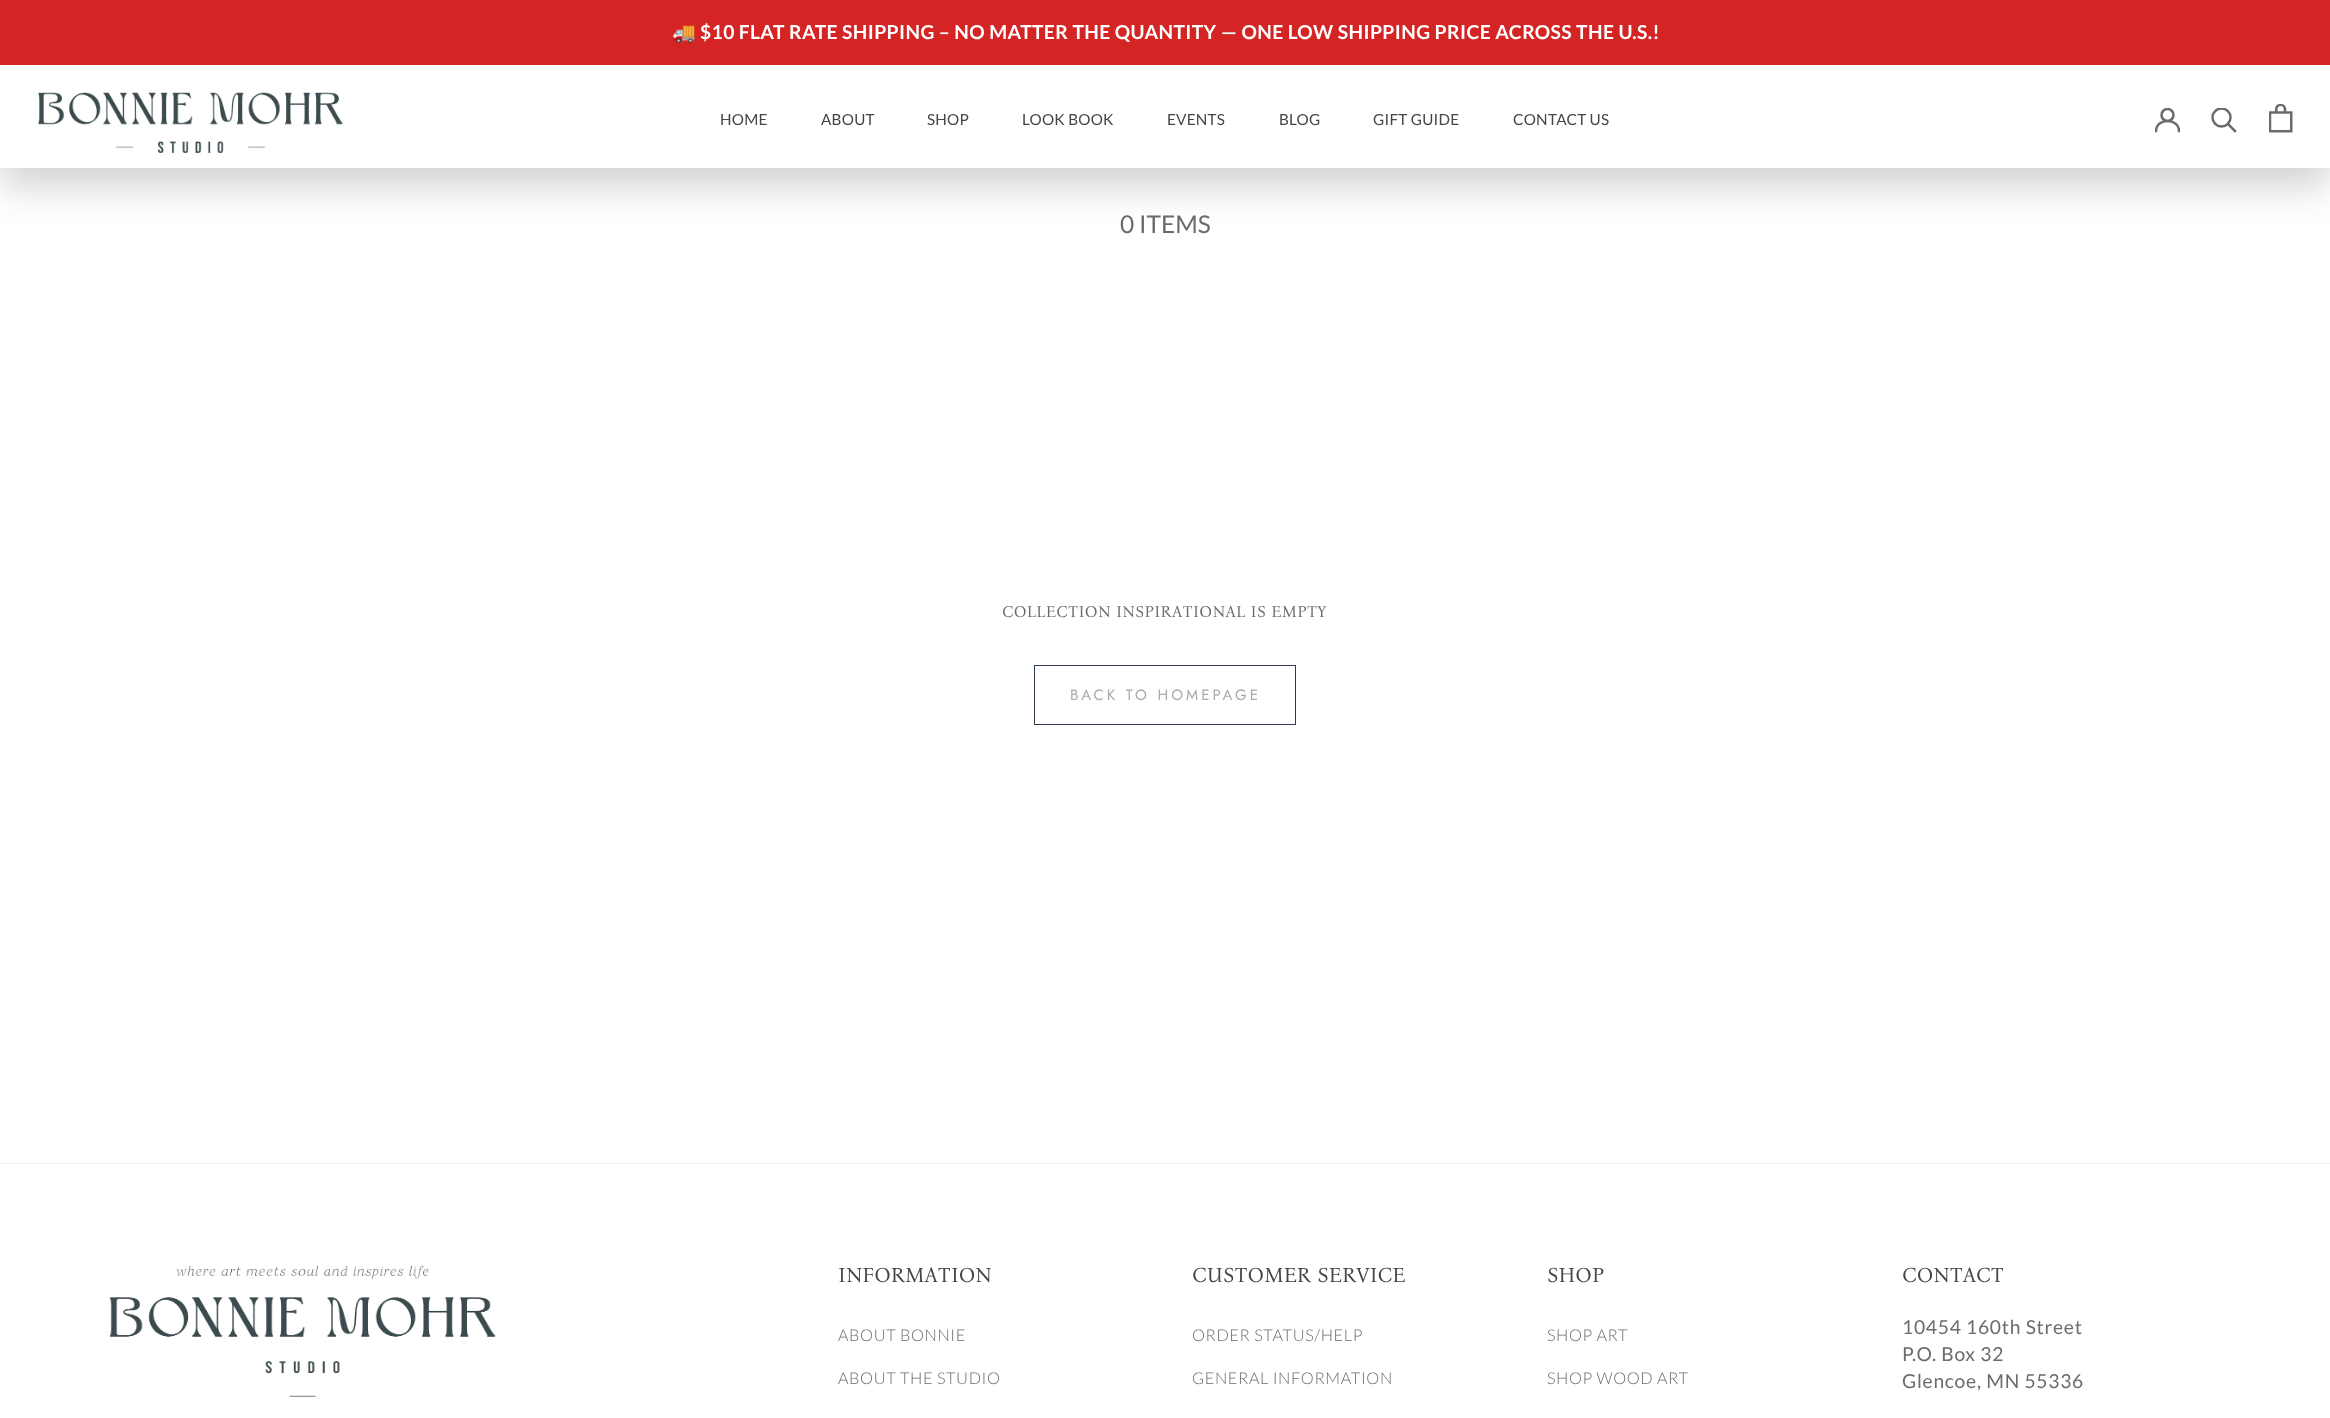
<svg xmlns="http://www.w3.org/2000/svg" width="2330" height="1418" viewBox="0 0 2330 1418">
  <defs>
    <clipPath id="clip1"><rect x="2155" y="108" width="25" height="25"/></clipPath>
    <clipPath id="clip2"><rect x="2211" y="108" width="27" height="26"/></clipPath>
  </defs>
  <rect width="100%" height="100%" fill="rgb(255,255,255)"/>
  <rect x="0" y="84" width="2330" height="102" fill="rgba(0,0,0,0.18)" filter="blur(19px)"/>
  <rect x="0" y="0" width="2330" height="65" fill="rgb(213,36,36)"/>
  <text x="672" y="39" font-family="Noto Color Emoji" font-size="19.25" font-weight="bold" letter-spacing="0.4" fill="rgb(255,255,255)">🚚</text>
  <text x="700" y="39" font-family="Lato" font-size="19.25" font-weight="bold" letter-spacing="0.4" fill="rgb(255,255,255)">$10 FLAT RATE SHIPPING – NO MATTER THE QUANTITY — ONE LOW SHIPPING PRICE ACROSS THE U.S.!</text>
  <rect x="0" y="65" width="2330" height="103" fill="rgb(255,255,255)"/>
  <image x="38" y="92" width="305" height="61" href="pic1.png"/>
  <g font-family="Lato" font-size="15.25" letter-spacing="0.25" fill="rgb(69,69,69)">
    <text x="720" y="125">HOME</text>
    <text x="821" y="125">ABOUT</text>
    <text x="927" y="125">SHOP</text>
    <text x="1022" y="125">LOOK BOOK</text>
    <text x="1167" y="125">EVENTS</text>
    <text x="1279" y="125">BLOG</text>
    <text x="1373" y="125">GIFT GUIDE</text>
    <text x="1513" y="125">CONTACT US</text>
  </g>
  <g clip-path="url(#clip1)">
    <path d="M2156 131C2156 117.5 2179 117.5 2179 131" fill="none" stroke="rgb(107,107,107)" stroke-width="2.5" stroke-linecap="square"/>
    <circle cx="2167.5" cy="115" r="6" fill="none" stroke="rgb(107,107,107)" stroke-width="2.5"/>
  </g>
  <path d="M2235 131L2228 124" fill="none" stroke="rgb(107,107,107)" stroke-width="2.5" stroke-linecap="square"/>
  <g clip-path="url(#clip2)">
    <circle cx="2221.5" cy="117.5" r="9" fill="none" stroke="rgb(107,107,107)" stroke-width="2.5"/>
  </g>
  <image x="2269" y="104" width="24" height="29" href="pic2.png"/>
  <text x="1120" y="233" font-family="Lato" font-size="24.5" fill="rgb(107,107,107)">0 ITEMS</text>
  <text x="1002" y="617" font-family="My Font" font-size="16.25" letter-spacing="0.3" fill="rgb(107,107,107)">COLLECTION INSPIRATIONAL IS EMPTY</text>
  <rect x="1034.5" y="665.5" width="261" height="59" fill="none" stroke="rgb(48,61,77)"/>
  <text x="1070" y="700" font-family="Jost" font-size="15" letter-spacing="3" fill="rgb(170,170,170)">BACK TO HOMEPAGE</text>
  <rect x="0" y="1163" width="2330" height="1" fill="rgb(238,238,238)"/>
  <image x="109" y="1265" width="387" height="132" href="pic3.png"/>
  <text x="838" y="1282" font-family="My Font" font-size="21" fill="rgb(69,69,69)">INFORMATION</text>
  <g font-family="Lato" font-size="16.25" font-weight="300" letter-spacing="0.6" fill="rgb(107,107,107)">
    <text x="838" y="1341">ABOUT BONNIE</text>
    <text x="838" y="1384">ABOUT THE STUDIO</text>
  </g>
  <text x="1192" y="1282" font-family="My Font" font-size="21" fill="rgb(69,69,69)">CUSTOMER SERVICE</text>
  <g font-family="Lato" font-size="16.25" font-weight="300" letter-spacing="0.6" fill="rgb(107,107,107)">
    <text x="1192" y="1341">ORDER STATUS/HELP</text>
    <text x="1192" y="1384">GENERAL INFORMATION</text>
  </g>
  <text x="1547" y="1282" font-family="My Font" font-size="21" fill="rgb(69,69,69)">SHOP</text>
  <g font-family="Lato" font-size="16.25" font-weight="300" letter-spacing="0.6" fill="rgb(107,107,107)">
    <text x="1547" y="1341">SHOP ART</text>
    <text x="1547" y="1384">SHOP WOOD ART</text>
  </g>
  <text x="1902" y="1282" font-family="My Font" font-size="21" fill="rgb(69,69,69)">CONTACT</text>
  <g font-family="Lato" font-size="19.25" letter-spacing="0.75" fill="rgb(107,107,107)">
    <text>
      <tspan x="1902" y="1334">10454 160th Street</tspan>
      <tspan x="1902" y="1361">P.O. Box 32</tspan>
      <tspan x="1902" y="1388">Glencoe, MN 55336</tspan>
    </text>
  </g>
</svg>
